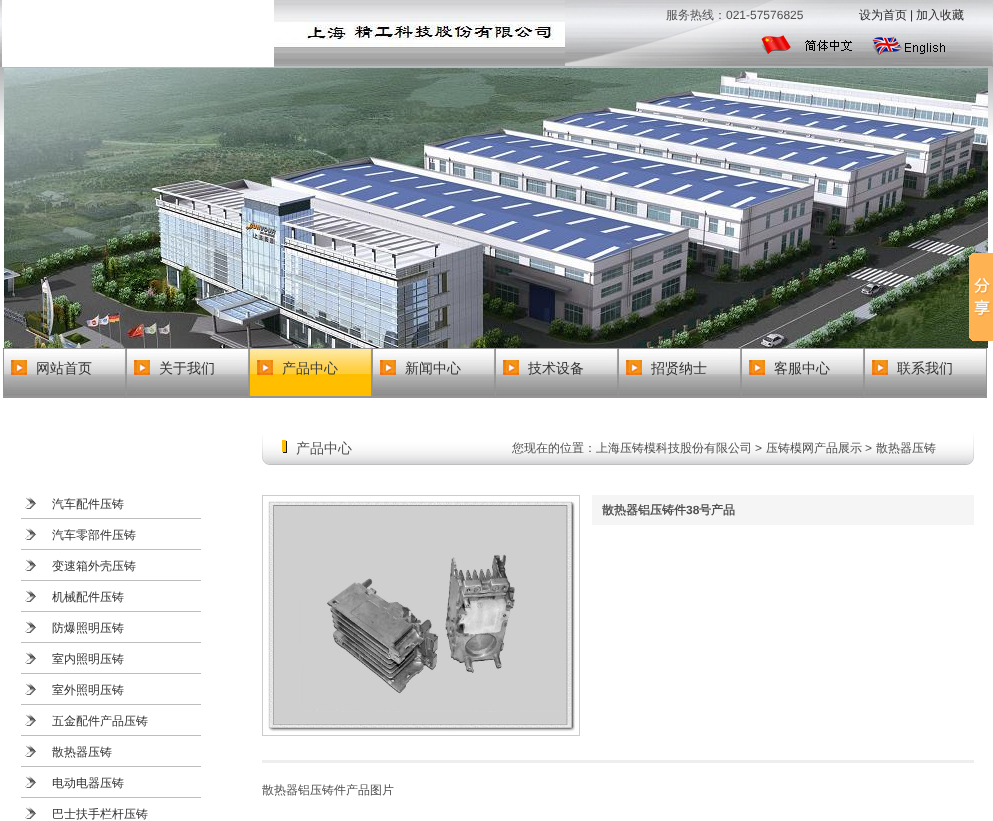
<svg xmlns="http://www.w3.org/2000/svg" width="993" height="821" viewBox="0 0 993 821">
  <rect width="100%" height="100%" fill="rgb(255,255,255)"/>
  <image x="0" y="0" width="993" height="135" href="pic1.png"/>
  <rect x="2" y="0" width="272" height="67" fill="rgb(255,255,255)"/>
  <image x="274" y="0" width="291" height="67" href="pic2.png"/>
  <image x="565" y="1" width="194" height="66" href="pic3.png"/>
  <image x="759" y="0" width="108" height="67" href="pic4.png"/>
  <image x="867" y="0" width="125" height="67" href="pic5.png"/>
  <text x="666" y="19" font-family="WenQuanYi Zen Hei" font-size="12" font-weight="500" fill="rgb(80,80,80)">服务热线：</text>
  <text x="726" y="19" font-family="Liberation Sans" font-size="12" fill="rgb(80,80,80)">021-57576825</text>
  <text x="859" y="19" font-family="WenQuanYi Zen Hei" font-size="12" font-weight="500" fill="rgb(43,42,42)">设为首页</text>
  <text x="910" y="19" font-family="Liberation Sans" font-size="12" fill="rgb(43,42,42)">|</text>
  <text x="916" y="19" font-family="WenQuanYi Zen Hei" font-size="12" font-weight="500" fill="rgb(43,42,42)">加入收藏</text>
  <image x="4" y="68" width="984" height="280" href="pic6.png"/>
  <image x="3" y="348" width="123" height="50" href="pic7.png"/>
  <text x="36" y="373" font-family="WenQuanYi Zen Hei" font-size="14" font-weight="500" fill="rgb(51,51,51)">网站首页</text>
  <image x="126" y="348" width="123" height="50" href="pic7.png"/>
  <text x="159" y="373" font-family="WenQuanYi Zen Hei" font-size="14" font-weight="500" fill="rgb(51,51,51)">关于我们</text>
  <image x="249" y="348" width="123" height="50" href="pic8.png"/>
  <text x="282" y="373" font-family="WenQuanYi Zen Hei" font-size="14" font-weight="500" fill="rgb(61,61,61)">产品中心</text>
  <image x="372" y="348" width="123" height="50" href="pic7.png"/>
  <text x="405" y="373" font-family="WenQuanYi Zen Hei" font-size="14" font-weight="500" fill="rgb(51,51,51)">新闻中心</text>
  <image x="495" y="348" width="123" height="50" href="pic7.png"/>
  <text x="528" y="373" font-family="WenQuanYi Zen Hei" font-size="14" font-weight="500" fill="rgb(51,51,51)">技术设备</text>
  <image x="618" y="348" width="123" height="50" href="pic7.png"/>
  <text x="651" y="373" font-family="WenQuanYi Zen Hei" font-size="14" font-weight="500" fill="rgb(51,51,51)">招贤纳士</text>
  <image x="741" y="348" width="123" height="50" href="pic7.png"/>
  <text x="774" y="373" font-family="WenQuanYi Zen Hei" font-size="14" font-weight="500" fill="rgb(51,51,51)">客服中心</text>
  <image x="864" y="348" width="123" height="50" href="pic7.png"/>
  <text x="897" y="373" font-family="WenQuanYi Zen Hei" font-size="14" font-weight="500" fill="rgb(51,51,51)">联系我们</text>
  <image x="21" y="497" width="180" height="22" href="pic9.png"/>
  <text x="52" y="508" font-family="WenQuanYi Zen Hei" font-size="12" font-weight="500" fill="rgb(51,51,51)">汽车配件压铸</text>
  <image x="21" y="528" width="180" height="22" href="pic9.png"/>
  <text x="52" y="539" font-family="WenQuanYi Zen Hei" font-size="12" font-weight="500" fill="rgb(51,51,51)">汽车零部件压铸</text>
  <image x="21" y="559" width="180" height="22" href="pic9.png"/>
  <text x="52" y="570" font-family="WenQuanYi Zen Hei" font-size="12" font-weight="500" fill="rgb(51,51,51)">变速箱外壳压铸</text>
  <image x="21" y="590" width="180" height="22" href="pic9.png"/>
  <text x="52" y="601" font-family="WenQuanYi Zen Hei" font-size="12" font-weight="500" fill="rgb(51,51,51)">机械配件压铸</text>
  <image x="21" y="621" width="180" height="22" href="pic9.png"/>
  <text x="52" y="632" font-family="WenQuanYi Zen Hei" font-size="12" font-weight="500" fill="rgb(51,51,51)">防爆照明压铸</text>
  <image x="21" y="652" width="180" height="22" href="pic9.png"/>
  <text x="52" y="663" font-family="WenQuanYi Zen Hei" font-size="12" font-weight="500" fill="rgb(51,51,51)">室内照明压铸</text>
  <image x="21" y="683" width="180" height="22" href="pic9.png"/>
  <text x="52" y="694" font-family="WenQuanYi Zen Hei" font-size="12" font-weight="500" fill="rgb(51,51,51)">室外照明压铸</text>
  <image x="21" y="714" width="180" height="22" href="pic9.png"/>
  <text x="52" y="725" font-family="WenQuanYi Zen Hei" font-size="12" font-weight="500" fill="rgb(51,51,51)">五金配件产品压铸</text>
  <image x="21" y="745" width="180" height="22" href="pic9.png"/>
  <text x="52" y="756" font-family="WenQuanYi Zen Hei" font-size="12" font-weight="500" fill="rgb(51,51,51)">散热器压铸</text>
  <image x="21" y="776" width="180" height="22" href="pic9.png"/>
  <text x="52" y="787" font-family="WenQuanYi Zen Hei" font-size="12" font-weight="500" fill="rgb(51,51,51)">电动电器压铸</text>
  <image x="25" y="807" width="11" height="12" href="pic10.png"/>
  <text x="52" y="818" font-family="WenQuanYi Zen Hei" font-size="12" font-weight="500" fill="rgb(51,51,51)">巴士扶手栏杆压铸</text>
  <image x="262" y="434" width="704" height="31" href="pic11.png"/>
  <text x="296" y="453" font-family="WenQuanYi Zen Hei" font-size="14" font-weight="500" fill="rgb(80,80,80)">产品中心</text>
  <text x="512" y="452" font-family="WenQuanYi Zen Hei" font-size="12" font-weight="500" fill="rgb(80,80,80)">您现在的位置：上海压铸模科技股份有限公司</text>
  <text x="755" y="452" font-family="Liberation Sans" font-size="12" fill="rgb(80,80,80)">&gt;</text>
  <text x="766" y="452" font-family="WenQuanYi Zen Hei" font-size="12" font-weight="500" fill="rgb(80,80,80)">压铸模网产品展示</text>
  <text x="865" y="452" font-family="Liberation Sans" font-size="12" fill="rgb(80,80,80)">&gt;</text>
  <text x="876" y="452" font-family="WenQuanYi Zen Hei" font-size="12" font-weight="500" fill="rgb(80,80,80)">散热器压铸</text>
  <image x="966" y="434" width="8" height="31" href="pic12.png"/>
  <rect x="262.5" y="495.5" width="317" height="240" fill="none" stroke="rgb(204,204,204)"/>
  <image x="268" y="501" width="307" height="231" href="pic13.png"/>
  <rect x="592" y="495" width="382" height="30" fill="rgb(245,245,245)"/>
  <text x="602" y="514" font-family="WenQuanYi Zen Hei" font-size="12" font-weight="bold" fill="rgb(80,80,80)">散热器铝压铸件</text>
  <text x="686" y="514" font-family="Liberation Sans" font-size="12" font-weight="bold" fill="rgb(80,80,80)">38</text>
  <text x="699" y="514" font-family="WenQuanYi Zen Hei" font-size="12" font-weight="bold" fill="rgb(80,80,80)">号产品</text>
  <rect x="262" y="760" width="712" height="3" fill="rgb(238,238,238)"/>
  <text x="262" y="794" font-family="WenQuanYi Zen Hei" font-size="12" font-weight="500" fill="rgb(80,80,80)">散热器铝压铸件产品图片</text>
  <image x="969" y="253" width="24" height="88" href="pic14.png"/>
</svg>
